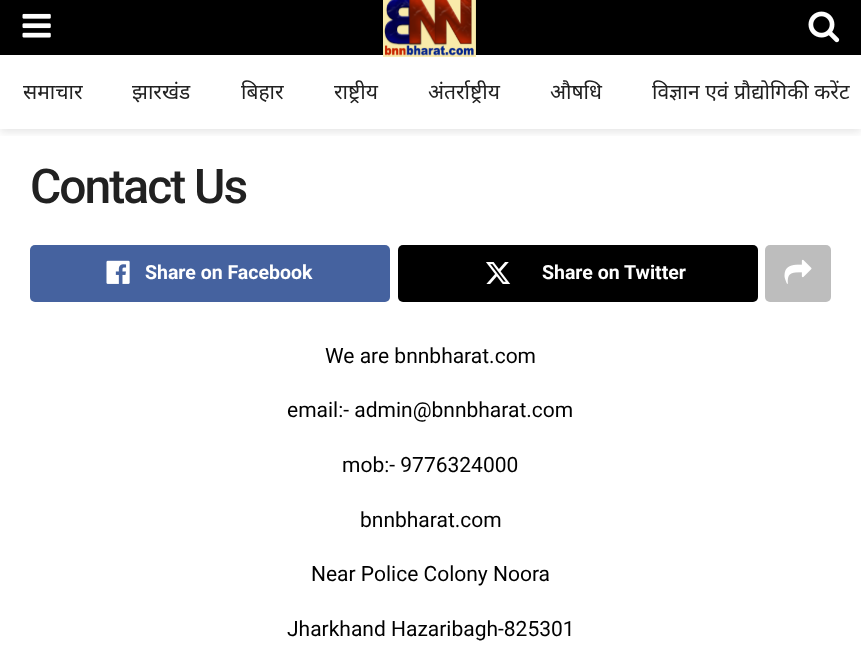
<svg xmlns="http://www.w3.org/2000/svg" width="861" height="650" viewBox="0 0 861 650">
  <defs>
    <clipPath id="clip1"><rect x="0" y="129" width="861" height="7"/></clipPath>
  </defs>
  <rect width="100%" height="100%" fill="rgb(255,255,255)"/>
  <g clip-path="url(#clip1)">
    <rect x="0" y="3" width="861" height="129" fill="rgba(0,0,0,0.1)" filter="blur(4.5px)"/>
  </g>
  <rect x="0" y="0" width="861" height="55" fill="rgb(0,0,0)"/>
  <image x="22" y="13" width="29" height="25" href="pic1.png"/>
  <image x="383" y="0" width="93" height="57" href="pic2.png"/>
  <image x="808" y="11" width="32" height="32" href="pic3.png"/>
  <g font-family="Noto Sans" font-size="21" fill="rgb(33,33,33)">
    <text x="23" y="99">समाचार</text>
    <text x="132" y="99">झारखंड</text>
    <text x="241" y="99">बिहार</text>
    <text x="334" y="99">राष्ट्रीय</text>
    <text x="428" y="99">अंतर्राष्ट्रीय</text>
    <text x="550" y="99">औषधि</text>
    <text x="652" y="99">विज्ञान एवं प्रौद्योगिकी करेंट</text>
  </g>
  <text x="30" y="203" font-family="Roboto" font-size="48" font-weight="500" letter-spacing="-2" fill="rgb(33,33,33)">Contact Us</text>
  <rect x="30" y="245" width="360" height="57" rx="5" fill="rgb(69,98,159)"/>
  <image x="106" y="260" width="24" height="24" href="pic4.png"/>
  <text x="145" y="279" font-family="Roboto" font-size="19.5" font-weight="bold" fill="rgb(255,255,255)">Share on Facebook</text>
  <rect x="398" y="245" width="360" height="57" rx="5" fill="rgb(0,0,0)"/>
  <image x="486" y="262" width="25" height="22" href="pic5.png"/>
  <text x="542" y="279" font-family="Roboto" font-size="19.5" font-weight="bold" fill="rgb(255,255,255)">Share on Twitter</text>
  <rect x="765" y="245" width="66" height="57" rx="5" fill="rgb(189,189,189)"/>
  <image x="784" y="259" width="28" height="25" href="pic6.png"/>
  <g font-family="Roboto" font-size="21" fill="rgb(0,0,0)">
    <text x="325" y="363">We are bnnbharat.com</text>
    <text x="287" y="417">email:- admin@bnnbharat.com</text>
    <text x="342" y="472">mob:- 9776324000</text>
    <text x="360" y="527">bnnbharat.com</text>
    <text x="311" y="581">Near Police Colony Noora</text>
    <text x="287" y="636">Jharkhand Hazaribagh-825301</text>
  </g>
</svg>
